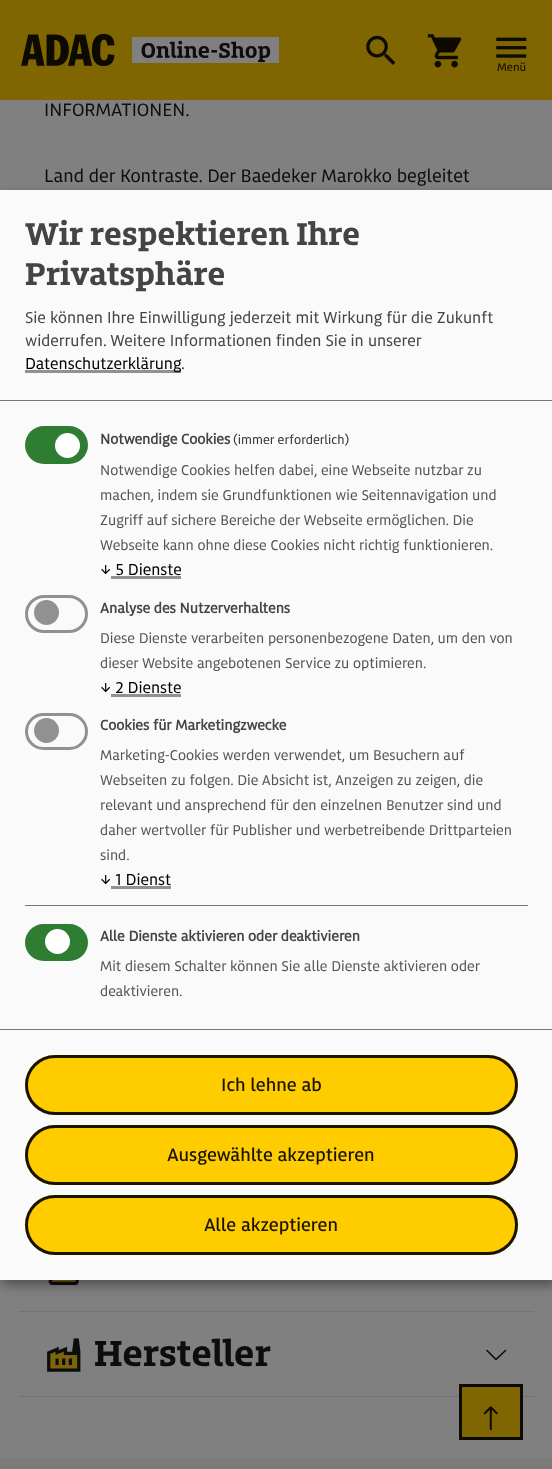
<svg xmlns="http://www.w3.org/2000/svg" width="552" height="1469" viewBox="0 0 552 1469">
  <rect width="100%" height="100%" fill="rgb(128,128,128)"/>
  <rect x="0" y="0" width="552" height="100" fill="rgb(128,102,0)"/>
  <image x="21" y="34" width="258" height="32" href="pic1.png"/>
  <image x="366" y="35" width="30" height="30" href="pic2.png"/>
  <image x="427" y="34" width="35" height="34" href="pic3.png"/>
  <image x="496" y="37" width="31" height="21" href="pic4.png"/>
  <text x="497" y="71" font-family="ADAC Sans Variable" font-size="12.5" font-weight="500" fill="rgb(26,21,0)">Menü</text>
  <g font-family="ADAC Sans Variable" font-size="20" fill="rgb(13,13,13)">
    <text x="44" y="116">INFORMATIONEN.</text>
    <text x="44" y="182">Land der Kontraste. Der Baedeker Marokko begleitet</text>
  </g>
  <image x="48" y="1280" width="31" height="5" href="pic5.png"/>
  <rect x="19" y="1311" width="515" height="1" fill="rgb(115,115,115)"/>
  <rect x="19" y="1396" width="515" height="1" fill="rgb(115,115,115)"/>
  <image x="47" y="1338" width="34" height="34" href="pic6.png"/>
  <text x="94" y="1366" font-family="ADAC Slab" font-size="40" font-weight="bold" fill="rgb(13,13,13)">Hersteller</text>
  <path d="M487 1350.5L496 1359.5L505.5 1350.5" fill="none" stroke="rgb(13,13,13)" stroke-width="1.6" stroke-linecap="round" stroke-linejoin="round"/>
  <rect x="0" y="1458" width="552" height="11" fill="rgb(123,123,123)"/>
  <rect x="6" y="196" width="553" height="1090" fill="rgba(0,0,0,0.19)" filter="blur(6px)"/>
  <rect x="0" y="195" width="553" height="1090" fill="rgba(0,0,0,0.2)" filter="blur(4px)"/>
  <rect x="0" y="190" width="552" height="1090" fill="rgb(250,250,250)"/>
  <rect x="0" y="400" width="552" height="1" fill="rgb(119,119,119)"/>
  <g font-family="ADAC Slab" font-size="35" font-weight="bold" fill="rgb(68,68,68)">
    <text>
      <tspan x="25" y="245">Wir respektieren Ihre</tspan>
      <tspan x="25" y="285">Privatsphäre</tspan>
    </text>
  </g>
  <g font-family="ADAC Sans Variable" font-size="17.5" fill="rgb(68,68,68)">
    <text>
      <tspan x="25" y="323">Sie können Ihre Einwilligung jederzeit mit Wirkung für die Zukunft</tspan>
      <tspan x="25" y="346">widerrufen. Weitere Informationen finden Sie in unserer</tspan>
    </text>
  </g>
  <rect x="25" y="370" width="156" height="3" fill="rgb(145,145,145)"/>
  <text x="25" y="369" font-family="ADAC Sans Variable" font-size="17.5" fill="rgb(0,0,0)">Datenschutzerklärung</text>
  <text x="181" y="369" font-family="ADAC Sans Variable" font-size="17.5" fill="rgb(68,68,68)">.</text>
  <rect x="25" y="426" width="63" height="38" rx="19" fill="rgb(46,125,50)"/>
  <circle cx="67.5" cy="445.5" r="12.5" fill="rgb(255,255,255)"/>
  <text x="100" y="444" font-family="ADAC Sans Variable" font-size="15.75" font-weight="bold" fill="rgb(68,68,68)">Notwendige Cookies</text>
  <text x="233" y="444" font-family="ADAC Sans Variable" font-size="14" fill="rgb(50,50,50)">(immer erforderlich)</text>
  <g font-family="ADAC Sans Variable" font-size="15.75" fill="rgb(85,85,85)">
    <text>
      <tspan x="100" y="475">Notwendige Cookies helfen dabei, eine Webseite nutzbar zu</tspan>
      <tspan x="100" y="500">machen, indem sie Grundfunktionen wie Seitennavigation und</tspan>
      <tspan x="100" y="525">Zugriff auf sichere Bereiche der Webseite ermöglichen. Die</tspan>
      <tspan x="100" y="550">Webseite kann ohne diese Cookies nicht richtig funktionieren.</tspan>
    </text>
  </g>
  <text x="100" y="575" font-family="ADAC Sans Variable" font-size="17.5" fill="rgb(0,0,0)">↓ 5 Dienste</text>
  <rect x="111" y="576" width="70" height="3" fill="rgb(145,145,145)"/>
  <rect x="26.5" y="596.5" width="60" height="35" rx="17.5" fill="none" stroke="rgb(145,145,145)" stroke-width="3"/>
  <circle cx="46.5" cy="612.5" r="12.5" fill="rgb(145,145,145)"/>
  <text x="100" y="613" font-family="ADAC Sans Variable" font-size="15.75" font-weight="bold" fill="rgb(68,68,68)">Analyse des Nutzerverhaltens</text>
  <g font-family="ADAC Sans Variable" font-size="15.75" fill="rgb(85,85,85)">
    <text>
      <tspan x="100" y="643">Diese Dienste verarbeiten personenbezogene Daten, um den von</tspan>
      <tspan x="100" y="668">dieser Website angebotenen Service zu optimieren.</tspan>
    </text>
  </g>
  <text x="100" y="693" font-family="ADAC Sans Variable" font-size="17.5" fill="rgb(0,0,0)">↓ 2 Dienste</text>
  <rect x="111" y="694" width="70" height="3" fill="rgb(145,145,145)"/>
  <rect x="26.5" y="714.5" width="60" height="34" rx="17" fill="none" stroke="rgb(145,145,145)" stroke-width="3"/>
  <circle cx="46.5" cy="730.5" r="12.5" fill="rgb(145,145,145)"/>
  <text x="100" y="730" font-family="ADAC Sans Variable" font-size="15.75" font-weight="bold" fill="rgb(68,68,68)">Cookies für Marketingzwecke</text>
  <g font-family="ADAC Sans Variable" font-size="15.75" fill="rgb(85,85,85)">
    <text>
      <tspan x="100" y="760">Marketing-Cookies werden verwendet, um Besuchern auf</tspan>
      <tspan x="100" y="785">Webseiten zu folgen. Die Absicht ist, Anzeigen zu zeigen, die</tspan>
      <tspan x="100" y="810">relevant und ansprechend für den einzelnen Benutzer sind und</tspan>
      <tspan x="100" y="835">daher wertvoller für Publisher und werbetreibende Drittparteien</tspan>
      <tspan x="100" y="860">sind.</tspan>
    </text>
  </g>
  <text x="100" y="885" font-family="ADAC Sans Variable" font-size="17.5" fill="rgb(0,0,0)">↓ 1 Dienst</text>
  <rect x="111" y="886" width="60" height="3" fill="rgb(145,145,145)"/>
  <rect x="25" y="905" width="503" height="1" fill="rgb(119,119,119)"/>
  <rect x="25" y="924" width="63" height="37" rx="18.5" fill="rgb(46,125,50)"/>
  <circle cx="57.5" cy="941.5" r="12.5" fill="rgb(255,255,255)"/>
  <text x="100" y="941" font-family="ADAC Sans Variable" font-size="15.75" font-weight="bold" fill="rgb(68,68,68)">Alle Dienste aktivieren oder deaktivieren</text>
  <g font-family="ADAC Sans Variable" font-size="15.75" fill="rgb(85,85,85)">
    <text>
      <tspan x="100" y="971">Mit diesem Schalter können Sie alle Dienste aktivieren oder</tspan>
      <tspan x="100" y="996">deaktivieren.</tspan>
    </text>
  </g>
  <rect x="0" y="1029" width="552" height="1" fill="rgb(119,119,119)"/>
  <rect x="25" y="1055" width="493" height="60" rx="30" fill="rgb(255,204,0)"/>
  <rect x="26.5" y="1056.5" width="490" height="57" rx="28.5" fill="none" stroke="rgba(0,0,0,0.9)" stroke-width="3"/>
  <text x="221" y="1091" font-family="ADAC Sans Variable" font-size="20" font-weight="500" fill="rgb(26,21,0)">Ich lehne ab</text>
  <rect x="25" y="1125" width="493" height="60" rx="30" fill="rgb(255,204,0)"/>
  <rect x="26.5" y="1126.5" width="490" height="57" rx="28.5" fill="none" stroke="rgba(0,0,0,0.9)" stroke-width="3"/>
  <text x="167" y="1161" font-family="ADAC Sans Variable" font-size="20" font-weight="500" fill="rgb(26,21,0)">Ausgewählte akzeptieren</text>
  <rect x="25" y="1195" width="493" height="60" rx="30" fill="rgb(255,204,0)"/>
  <rect x="26.5" y="1196.5" width="490" height="57" rx="28.5" fill="none" stroke="rgba(0,0,0,0.9)" stroke-width="3"/>
  <text x="204" y="1231" font-family="ADAC Sans Variable" font-size="20" font-weight="500" fill="rgb(26,21,0)">Alle akzeptieren</text>
  <rect x="460.5" y="1385.5" width="61" height="53" fill="rgb(128,102,0)" stroke="rgb(13,11,0)" stroke-width="3"/>
  <image x="483" y="1406" width="15" height="24" href="pic7.png"/>
</svg>
